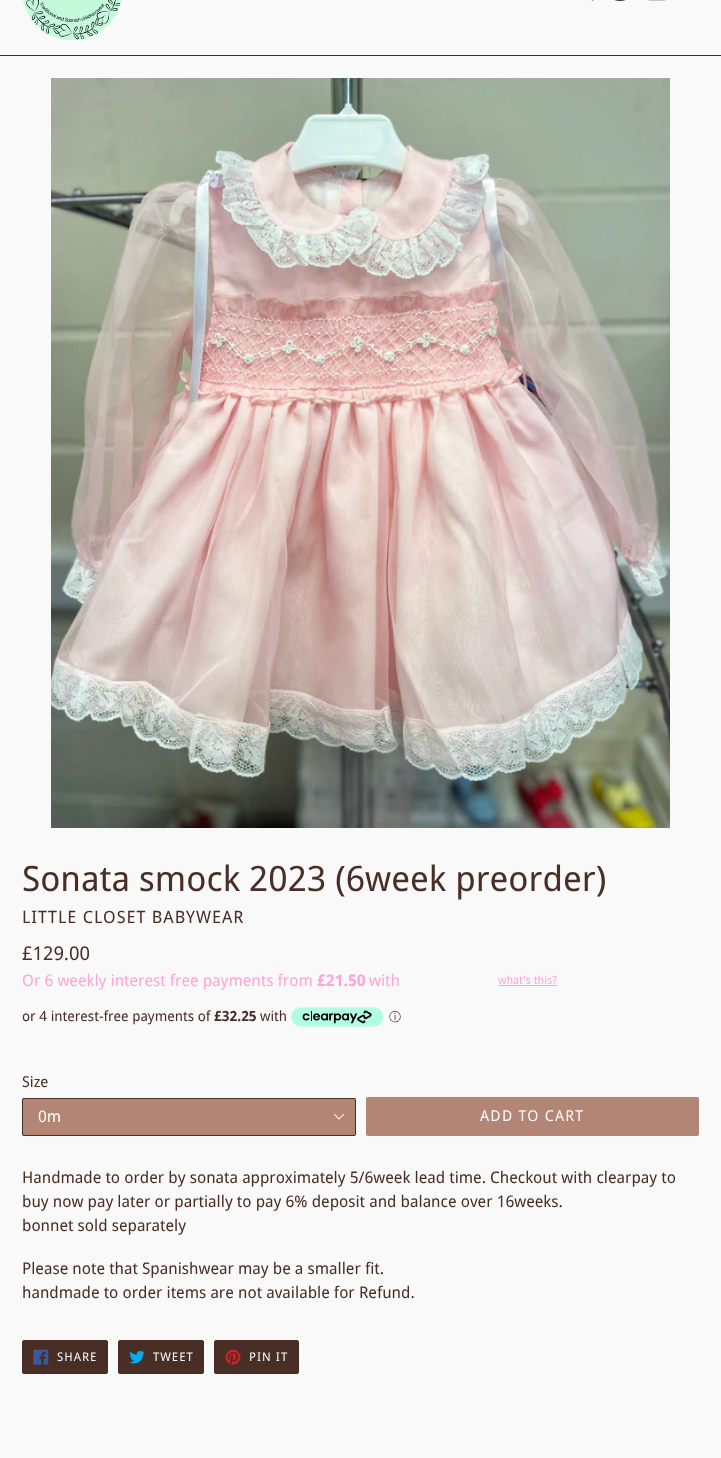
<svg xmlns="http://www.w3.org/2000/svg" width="721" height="1458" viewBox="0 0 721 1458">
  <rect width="100%" height="100%" fill="rgb(249,249,249)"/>
  <rect x="0" y="55" width="721" height="1" fill="rgb(72,46,36)"/>
  <image x="23" y="0" width="99" height="40" href="pic1.png"/>
  <image x="591" y="0" width="3" height="1" href="pic2.png"/>
  <image x="614" y="0" width="12" height="1" href="pic3.png"/>
  <image x="648" y="0" width="18" height="1" href="pic4.png"/>
  <image x="51" y="78" width="619" height="750" href="pic5.png"/>
  <text x="22" y="891" font-family="Droid Sans" font-size="35" fill="rgb(72,46,36)">Sonata smock 2023 (6week preorder)</text>
  <text x="22" y="923" font-family="Droid Sans" font-size="17" letter-spacing="1" fill="rgb(72,46,36)">LITTLE CLOSET BABYWEAR</text>
  <text x="22" y="960" font-family="Droid Sans" font-size="19" fill="rgb(72,46,36)">£129.00</text>
  <text x="22" y="986" font-family="Droid Sans" font-size="16" fill="rgb(255,164,217)">Or 6 weekly interest free payments from</text>
  <text x="317" y="986" font-family="Droid Sans" font-size="16" font-weight="bold" fill="rgb(255,164,217)">£21.50</text>
  <text x="369" y="986" font-family="Droid Sans" font-size="16" fill="rgb(255,164,217)">with</text>
  <text x="498" y="984" font-family="Droid Sans" font-size="11.25" fill="rgb(255,164,217)">what's this?</text>
  <rect x="498" y="985" width="59" height="1" fill="rgb(255,164,217)"/>
  <text x="22" y="1021" font-family="Droid Sans" font-size="14" fill="rgb(72,46,36)">or 4 interest-free payments of</text>
  <text x="214" y="1021" font-family="Droid Sans" font-size="14" font-weight="bold" fill="rgb(72,46,36)">£32.25</text>
  <text x="260" y="1021" font-family="Droid Sans" font-size="14" fill="rgb(72,46,36)">with</text>
  <image x="291" y="1007" width="92" height="20" href="pic6.png"/>
  <text x="389" y="1021" font-family="WenQuanYi Zen Hei" font-size="12" font-weight="500" fill="rgb(72,46,36)">ⓘ</text>
  <text x="22" y="1087" font-family="Droid Sans" font-size="15" fill="rgb(72,46,36)">Size</text>
  <rect x="22" y="1098" width="334" height="38" rx="2" fill="rgb(179,133,116)"/>
  <image x="333" y="1113" width="12" height="7" href="pic7.png"/>
  <rect x="22.5" y="1098.5" width="333" height="37" rx="1.5" fill="none" stroke="rgb(72,46,36)"/>
  <text x="38" y="1122" font-family="Droid Sans" font-size="16" fill="rgb(249,249,249)">0m</text>
  <rect x="366" y="1097" width="333" height="39" rx="2" fill="rgb(179,133,116)"/>
  <text x="480" y="1121" font-family="Droid Sans" font-size="15" letter-spacing="1.25" fill="rgb(249,249,249)">ADD TO CART</text>
  <g font-family="Droid Sans" font-size="16" fill="rgb(72,46,36)">
    <text>
      <tspan x="22" y="1183">Handmade to order by sonata approximately 5/6week lead time. Checkout with clearpay to</tspan>
      <tspan x="22" y="1207">buy now pay later or partially to pay 6% deposit and balance over 16weeks.</tspan>
      <tspan x="22" y="1231">bonnet sold separately</tspan>
    </text>
    <text>
      <tspan x="22" y="1274">Please note that Spanishwear may be a smaller fit.</tspan>
      <tspan x="22" y="1298">handmade to order items are not available for Refund.</tspan>
    </text>
  </g>
  <rect x="22.5" y="1340.5" width="85" height="33" rx="1.5" fill="rgb(72,46,36)" stroke="rgb(72,46,36)"/>
  <image x="33" y="1349" width="16" height="16" href="pic8.png"/>
  <text x="57" y="1361" font-family="Droid Sans" font-size="12" letter-spacing="1" fill="rgb(249,249,249)">SHARE</text>
  <rect x="118.5" y="1340.5" width="85" height="33" rx="1.5" fill="rgb(72,46,36)" stroke="rgb(72,46,36)"/>
  <image x="129" y="1350" width="16" height="14" href="pic9.png"/>
  <text x="153" y="1361" font-family="Droid Sans" font-size="12" letter-spacing="1" fill="rgb(249,249,249)">TWEET</text>
  <rect x="214.5" y="1340.5" width="84" height="33" rx="1.5" fill="rgb(72,46,36)" stroke="rgb(72,46,36)"/>
  <image x="225" y="1349" width="16" height="16" href="pic10.png"/>
  <text x="249" y="1361" font-family="Droid Sans" font-size="12" letter-spacing="1" fill="rgb(249,249,249)">PIN IT</text>
</svg>
